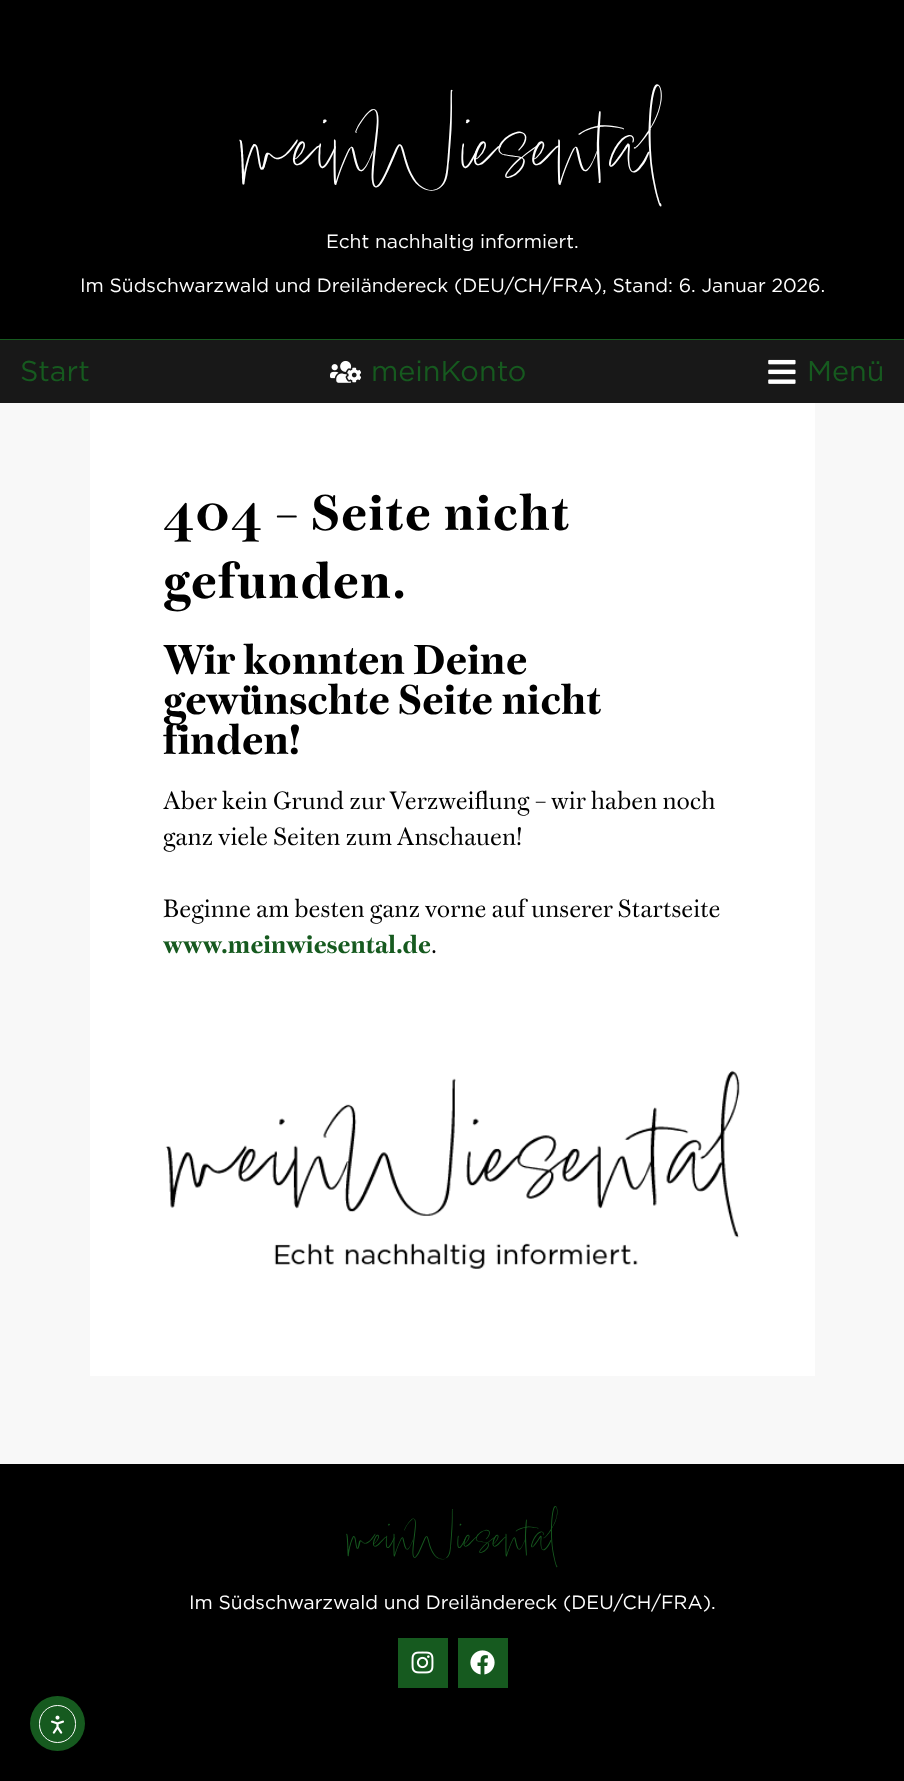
<svg xmlns="http://www.w3.org/2000/svg" width="904" height="1781" viewBox="0 0 904 1781">
  <rect width="100%" height="100%" fill="rgb(0,0,0)"/>
  <text x="241" y="174" font-family="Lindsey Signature" font-size="96" fill="rgb(255,255,255)">meinWiesental</text>
  <g font-family="Gotham" font-size="19.2" fill="rgb(255,255,255)">
    <text x="326" y="248">Echt nachhaltig informiert.</text>
    <text x="80" y="292">Im Südschwarzwald und Dreiländereck (DEU/CH/FRA), Stand: 6. Januar 2026.</text>
  </g>
  <rect x="0" y="340" width="904" height="63" fill="rgb(24,24,24)"/>
  <rect x="0" y="339" width="904" height="1" fill="rgb(22,90,31)"/>
  <text x="20" y="381" font-family="Gotham" font-size="28.75" fill="rgb(22,90,31)">Start</text>
  <image x="330" y="360" width="31" height="23" href="pic1.png"/>
  <text x="371" y="381" font-family="Gotham" font-size="28.75" fill="rgb(22,90,31)">meinKonto</text>
  <image x="768" y="359" width="28" height="25" href="pic2.png"/>
  <text x="807" y="381" font-family="Gotham" font-size="28.75" fill="rgb(22,90,31)">Menü</text>
  <rect x="0" y="403" width="904" height="1061" fill="rgb(248,248,248)"/>
  <rect x="90" y="403" width="725" height="973" fill="rgb(255,255,255)"/>
  <g font-family="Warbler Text" font-size="48" font-weight="bold" letter-spacing="1.4" fill="rgb(0,0,0)">
    <text>
      <tspan x="163" y="530">404 – Seite nicht</tspan>
      <tspan x="163" y="598">gefunden.</tspan>
    </text>
  </g>
  <g font-family="Warbler Text" font-size="40" font-weight="bold" fill="rgb(0,0,0)">
    <text>
      <tspan x="163" y="674">Wir konnten Deine</tspan>
      <tspan x="163" y="714">gewünschte Seite nicht</tspan>
      <tspan x="163" y="754">finden!</tspan>
    </text>
  </g>
  <g font-family="Warbler Text" font-size="24" fill="rgb(0,0,0)">
    <text>
      <tspan x="163" y="809">Aber kein Grund zur Verzweiflung – wir haben noch</tspan>
      <tspan x="163" y="845">ganz viele Seiten zum Anschauen!</tspan>
    </text>
    <text x="163" y="917">Beginne am besten ganz vorne auf unserer Startseite</text>
  </g>
  <text x="163" y="953" font-family="Warbler Text" font-size="24" font-weight="bold" fill="rgb(22,90,31)">www.meinwiesental.de</text>
  <text x="431" y="953" font-family="Warbler Text" font-size="24" fill="rgb(0,0,0)">.</text>
  <image x="165" y="1070" width="575" height="199" href="pic3.png"/>
  <text x="347" y="1551" font-family="Lindsey Signature" font-size="48" fill="rgb(22,90,31)">meinWiesental</text>
  <text x="189" y="1609" font-family="Gotham" font-size="19.2" fill="rgb(255,255,255)">Im Südschwarzwald und Dreiländereck (DEU/CH/FRA).</text>
  <rect x="398" y="1638" width="50" height="50" fill="rgb(22,90,31)"/>
  <image x="411" y="1651" width="23" height="23" href="pic4.png"/>
  <rect x="458" y="1638" width="50" height="50" fill="rgb(22,90,31)"/>
  <image x="470" y="1650" width="25" height="25" href="pic5.png"/>
  <circle cx="57.5" cy="1723.5" r="27.5" fill="rgb(22,90,31)"/>
  <rect x="39.5" y="1705.5" width="36" height="37" rx="18" fill="none" stroke="rgb(255,255,255)"/>
  <image x="50" y="1715" width="14" height="19" href="pic6.png"/>
</svg>
